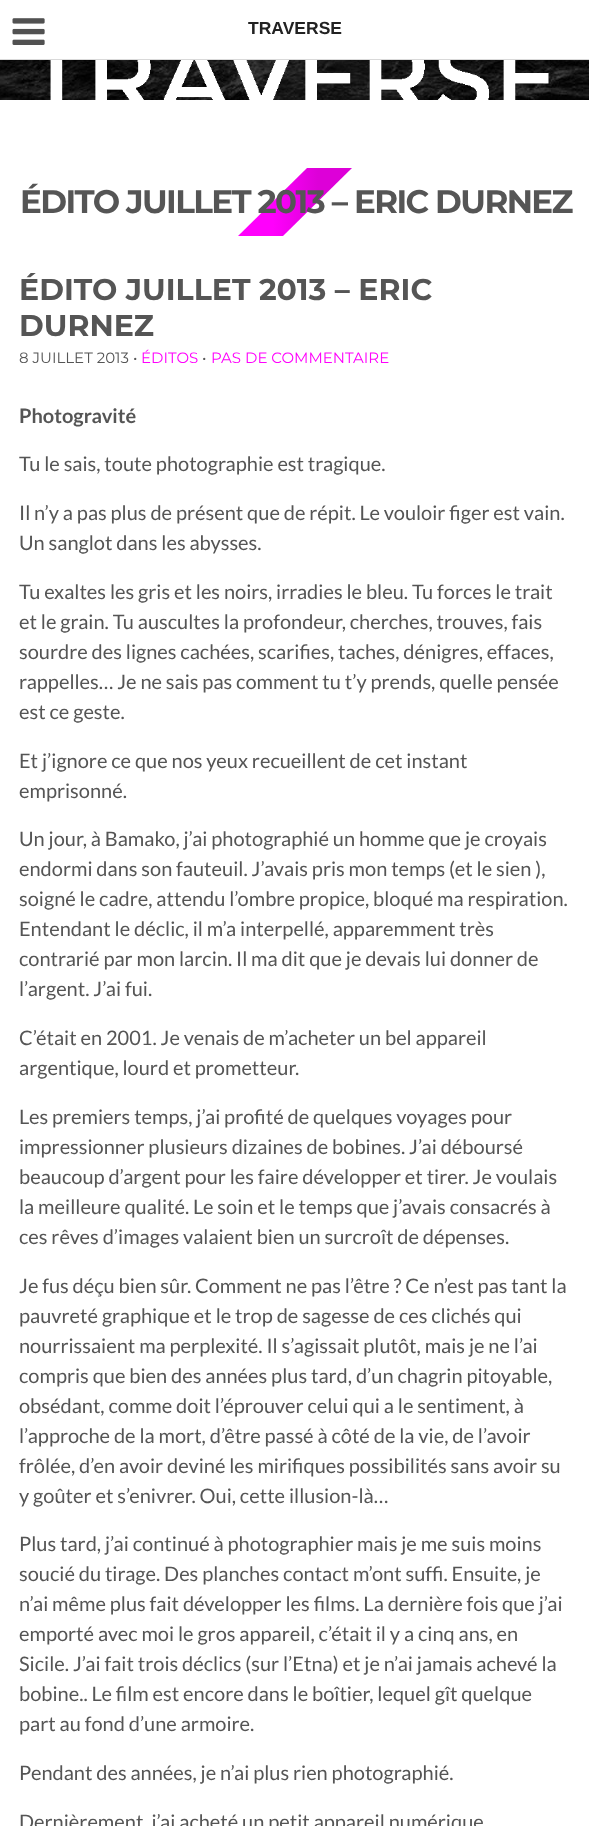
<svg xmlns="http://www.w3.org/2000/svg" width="589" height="1826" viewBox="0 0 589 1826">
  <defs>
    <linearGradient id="g1" gradientUnits="userSpaceOnUse" x1="273" y1="202" x2="318" y2="202"><stop offset="0" stop-color="rgb(255,0,252)"/><stop offset="1" stop-color="rgb(221,0,216)"/></linearGradient>
  </defs>
  <rect width="100%" height="100%" fill="rgb(255,255,255)"/>
  <rect x="0" y="59" width="589" height="1" fill="rgb(217,217,217)"/>
  <image x="12" y="18" width="33" height="27" href="pic1.png"/>
  <text x="248" y="34" font-family="Liberation Sans" font-size="17.5" font-weight="bold" fill="rgb(34,34,34)">TRAVERSE</text>
  <image x="0" y="60" width="589" height="40" href="pic2.png"/>
  <image x="50" y="60" width="499" height="40" href="pic3.png"/>
  <path d="M307 168H352L283 236H238Z" fill="url(#g1)"/>
  <text x="20" y="213" font-family="Montserrat" font-size="32.5" font-weight="bold" letter-spacing="-1.6" fill="rgb(85,85,85)">ÉDITO JUILLET 2013 – ERIC DURNEZ</text>
  <g font-family="Montserrat" font-size="30" font-weight="bold" fill="rgb(85,85,85)">
    <text>
      <tspan x="19" y="300">ÉDITO JUILLET 2013 – ERIC</tspan>
      <tspan x="19" y="336">DURNEZ</tspan>
    </text>
  </g>
  <text x="19" y="363" font-family="Montserrat" font-size="15" fill="rgb(85,85,85)">8 JUILLET 2013 •</text>
  <text x="141" y="363" font-family="Montserrat" font-size="15" fill="rgb(255,0,252)">ÉDITOS</text>
  <text x="202" y="363" font-family="Montserrat" font-size="15" fill="rgb(85,85,85)">•</text>
  <text x="211" y="363" font-family="Montserrat" font-size="15" fill="rgb(255,0,252)">PAS DE COMMENTAIRE</text>
  <text x="19" y="423" font-family="Lato" font-size="20" font-weight="bold" fill="rgb(85,85,85)">Photogravité</text>
  <g font-family="Lato" font-size="20" fill="rgb(85,85,85)">
    <text x="19" y="471">Tu le sais, toute photographie est tragique.</text>
    <text>
      <tspan x="19" y="520">Il n’y a pas plus de présent que de répit. Le vouloir figer est vain.</tspan>
      <tspan x="19" y="550">Un sanglot dans les abysses.</tspan>
    </text>
    <text>
      <tspan x="19" y="599">Tu exaltes les gris et les noirs, irradies le bleu. Tu forces le trait</tspan>
      <tspan x="19" y="629">et le grain. Tu auscultes la profondeur, cherches, trouves, fais</tspan>
      <tspan x="19" y="659">sourdre des lignes cachées, scarifies, taches, dénigres, effaces,</tspan>
      <tspan x="19" y="689">rappelles… Je ne sais pas comment tu t’y prends, quelle pensée</tspan>
      <tspan x="19" y="719">est ce geste.</tspan>
    </text>
    <text>
      <tspan x="19" y="768">Et j’ignore ce que nos yeux recueillent de cet instant</tspan>
      <tspan x="19" y="798">emprisonné.</tspan>
    </text>
    <text>
      <tspan x="19" y="846">Un jour, à Bamako, j’ai photographié un homme que je croyais</tspan>
      <tspan x="19" y="876">endormi dans son fauteuil. J’avais pris mon temps (et le sien ),</tspan>
      <tspan x="19" y="906">soigné le cadre, attendu l’ombre propice, bloqué ma respiration.</tspan>
      <tspan x="19" y="936">Entendant le déclic, il m’a interpellé, apparemment très</tspan>
      <tspan x="19" y="966">contrarié par mon larcin. Il ma dit que je devais lui donner de</tspan>
      <tspan x="19" y="996">l’argent. J’ai fui.</tspan>
    </text>
    <text>
      <tspan x="19" y="1045">C’était en 2001. Je venais de m’acheter un bel appareil</tspan>
      <tspan x="19" y="1075">argentique, lourd et prometteur.</tspan>
    </text>
    <text>
      <tspan x="19" y="1124">Les premiers temps, j’ai profité de quelques voyages pour</tspan>
      <tspan x="19" y="1154">impressionner plusieurs dizaines de bobines. J’ai déboursé</tspan>
      <tspan x="19" y="1184">beaucoup d’argent pour les faire développer et tirer. Je voulais</tspan>
      <tspan x="19" y="1214">la meilleure qualité. Le soin et le temps que j’avais consacrés à</tspan>
      <tspan x="19" y="1244">ces rêves d’images valaient bien un surcroît de dépenses.</tspan>
    </text>
    <text>
      <tspan x="19" y="1293">Je fus déçu bien sûr. Comment ne pas l’être ? Ce n’est pas tant la</tspan>
      <tspan x="19" y="1323">pauvreté graphique et le trop de sagesse de ces clichés qui</tspan>
      <tspan x="19" y="1353">nourrissaient ma perplexité. Il s’agissait plutôt, mais je ne l’ai</tspan>
      <tspan x="19" y="1383">compris que bien des années plus tard, d’un chagrin pitoyable,</tspan>
      <tspan x="19" y="1413">obsédant, comme doit l’éprouver celui qui a le sentiment, à</tspan>
      <tspan x="19" y="1443">l’approche de la mort, d’être passé à côté de la vie, de l’avoir</tspan>
      <tspan x="19" y="1473">frôlée, d’en avoir deviné les mirifiques possibilités sans avoir su</tspan>
      <tspan x="19" y="1503">y goûter et s’enivrer. Oui, cette illusion-là…</tspan>
    </text>
    <text>
      <tspan x="19" y="1551">Plus tard, j’ai continué à photographier mais je me suis moins</tspan>
      <tspan x="19" y="1581">soucié du tirage. Des planches contact m’ont suffi. Ensuite, je</tspan>
      <tspan x="19" y="1611">n’ai même plus fait développer les films. La dernière fois que j’ai</tspan>
      <tspan x="19" y="1641">emporté avec moi le gros appareil, c’était il y a cinq ans, en</tspan>
      <tspan x="19" y="1671">Sicile. J’ai fait trois déclics (sur l’Etna) et je n’ai jamais achevé la</tspan>
      <tspan x="19" y="1701">bobine.. Le film est encore dans le boîtier, lequel gît quelque</tspan>
      <tspan x="19" y="1731">part au fond d’une armoire.</tspan>
    </text>
    <text x="19" y="1780">Pendant des années, je n’ai plus rien photographié.</text>
    <text x="19" y="1829">Dernièrement, j’ai acheté un petit appareil numérique</text>
  </g>
</svg>
